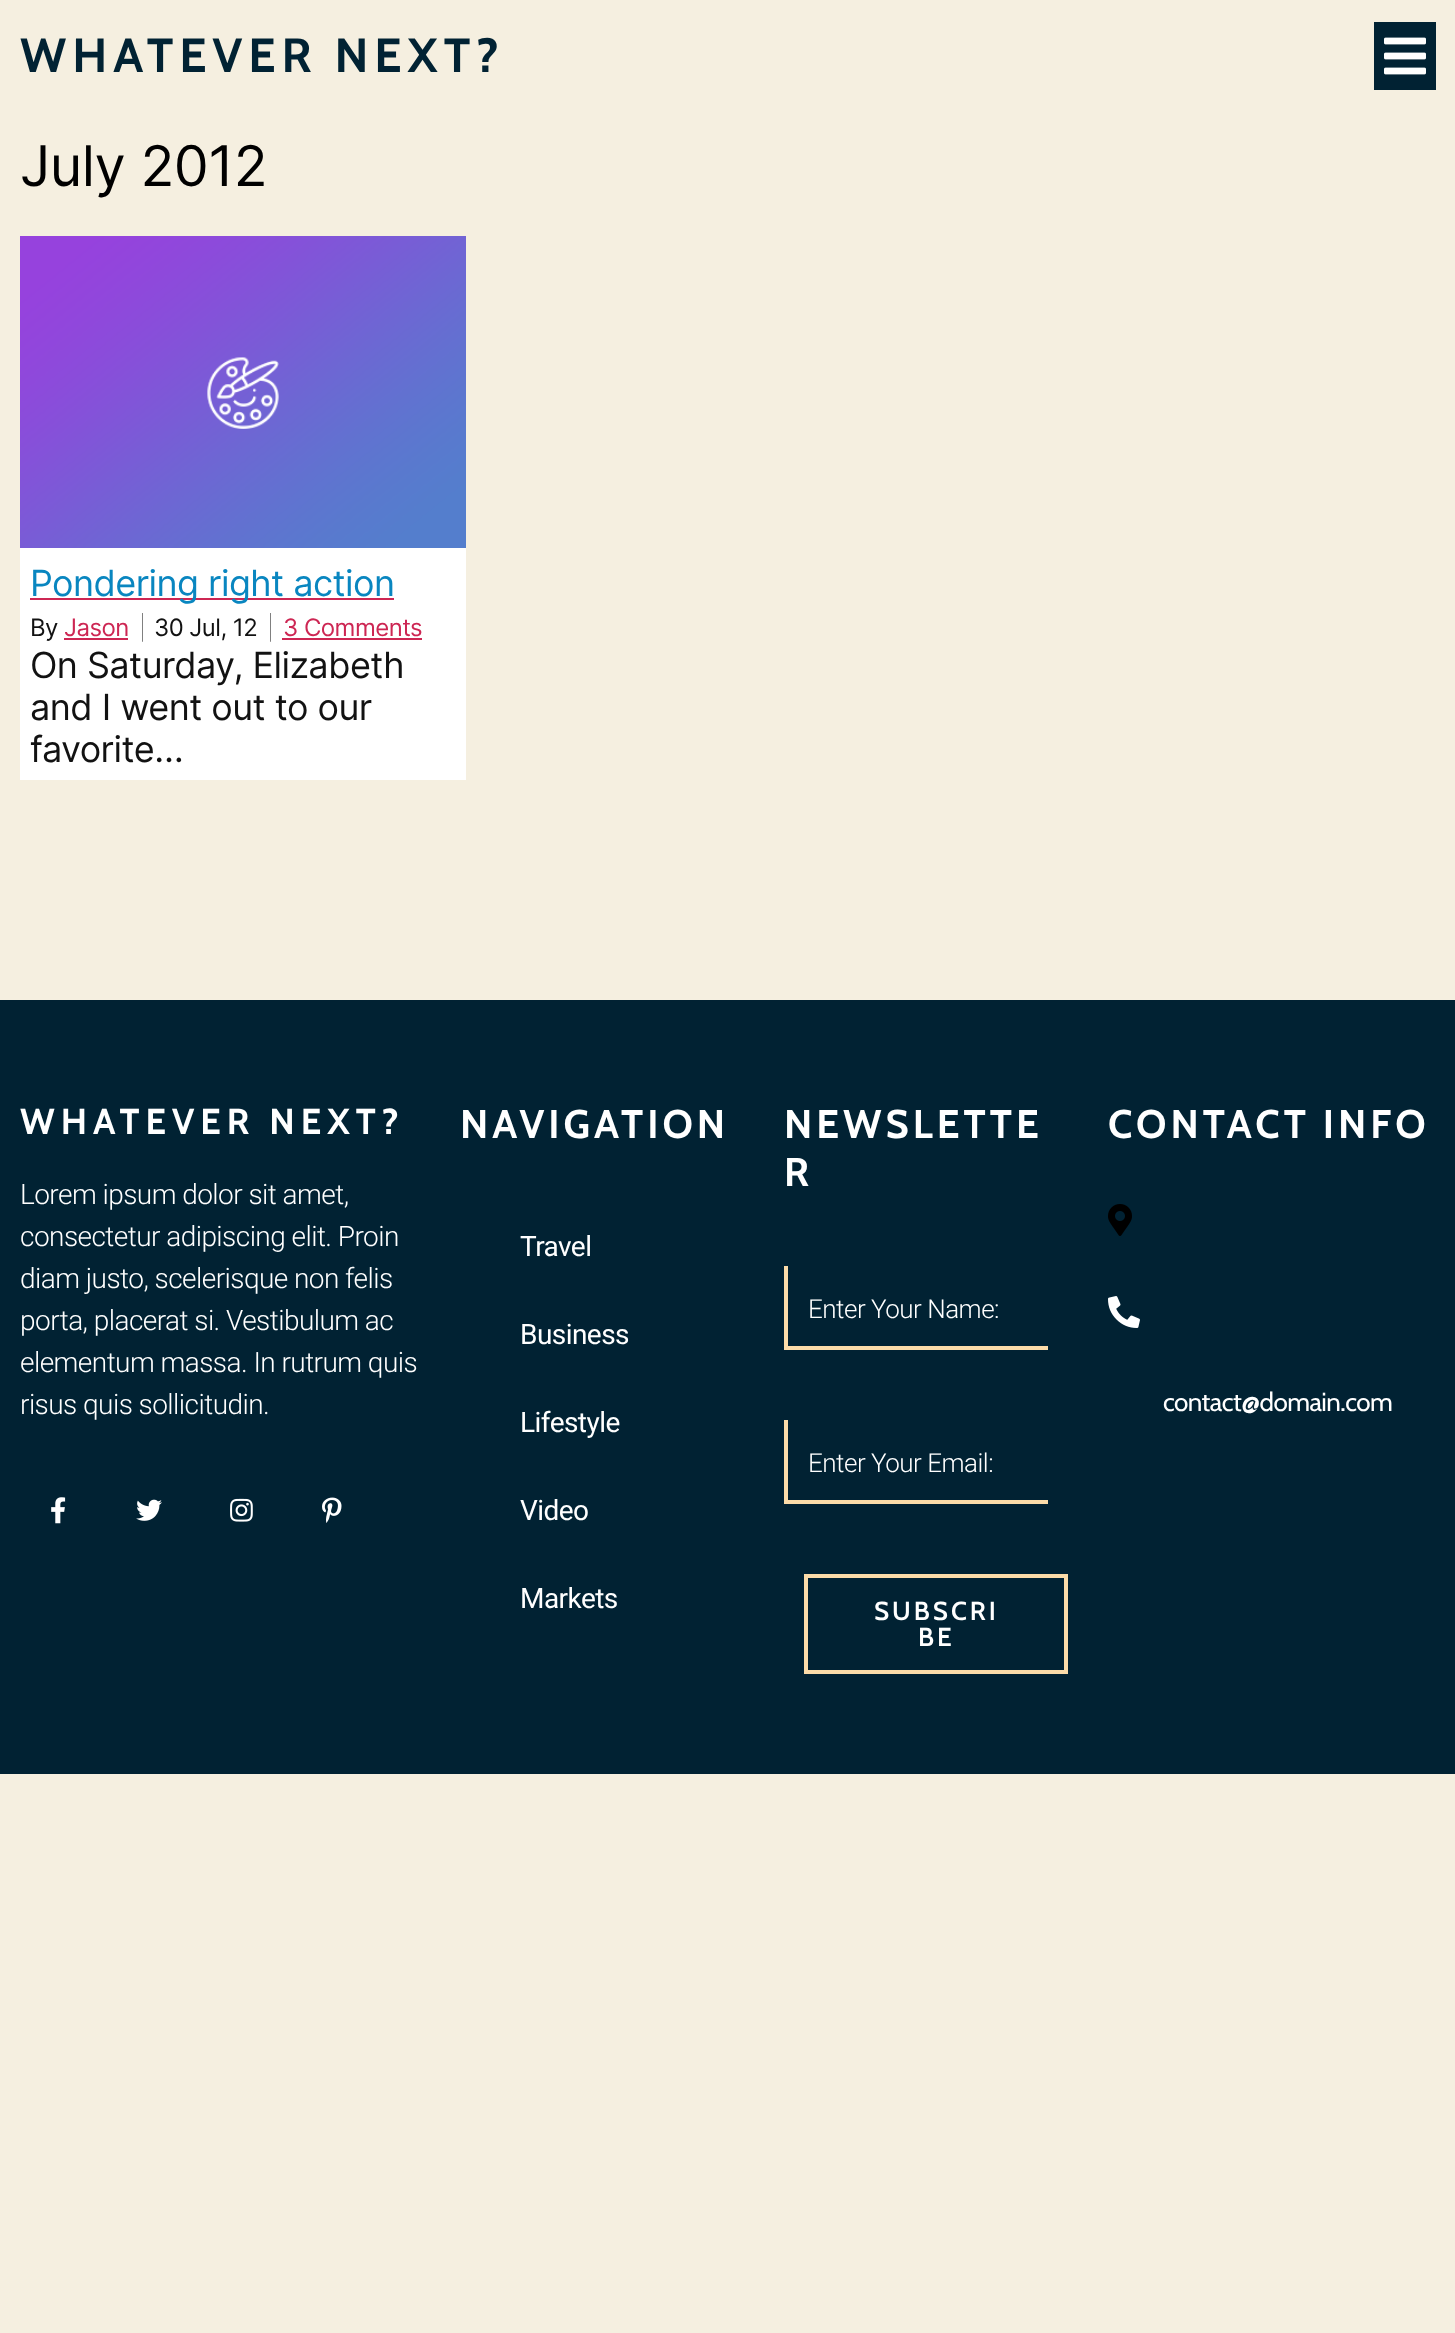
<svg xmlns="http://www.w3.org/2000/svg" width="1455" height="2333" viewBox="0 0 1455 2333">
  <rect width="100%" height="100%" fill="rgb(245,239,224)"/>
  <text x="20" y="72" font-family="Cabin" font-size="48" font-weight="bold" letter-spacing="6" fill="rgb(1,34,51)">WHATEVER NEXT?</text>
  <rect x="1374" y="22" width="62" height="68" fill="rgb(1,34,51)"/>
  <image x="1384" y="37" width="42" height="38" href="pic1.png"/>
  <text x="20" y="186" font-family="Inter" font-size="56" letter-spacing="-0.55" fill="rgb(0,0,0)">July 2012</text>
  <rect x="20" y="548" width="446" height="232" fill="rgb(255,255,255)"/>
  <image x="20" y="236" width="446" height="312" href="pic2.png"/>
  <rect x="30" y="598" width="364" height="2" fill="rgb(205,38,83)"/>
  <text x="30" y="596" font-family="Inter" font-size="36" letter-spacing="-0.55" fill="rgb(9,134,192)">Pondering right action</text>
  <text x="30" y="636" font-family="Inter" font-size="24" letter-spacing="-0.55" fill="rgb(18,18,18)">By</text>
  <text x="64" y="636" font-family="Inter" font-size="24" letter-spacing="-0.55" fill="rgb(205,38,83)">Jason</text>
  <rect x="64" y="638" width="64" height="2" fill="rgb(205,38,83)"/>
  <text x="139" y="636" font-family="Inter" font-size="24" font-weight="100" letter-spacing="-0.55" fill="rgb(18,18,18)">|</text>
  <text x="154" y="636" font-family="Inter" font-size="24" letter-spacing="-0.55" fill="rgb(18,18,18)">30 Jul, 12</text>
  <text x="267" y="636" font-family="Inter" font-size="24" font-weight="100" letter-spacing="-0.55" fill="rgb(18,18,18)">|</text>
  <text x="283" y="636" font-family="Inter" font-size="24" letter-spacing="-0.55" fill="rgb(205,38,83)">3 Comments</text>
  <rect x="282" y="638" width="140" height="2" fill="rgb(205,38,83)"/>
  <g font-family="Inter" font-size="36" letter-spacing="-0.55" fill="rgb(18,18,18)">
    <text>
      <tspan x="30" y="678">On Saturday, Elizabeth</tspan>
      <tspan x="30" y="720">and I went out to our</tspan>
      <tspan x="30" y="762">favorite…</tspan>
    </text>
  </g>
  <rect x="0" y="1000" width="1455" height="774" fill="rgb(1,34,51)"/>
  <text x="20" y="1134" font-family="Cabin" font-size="36" font-weight="bold" letter-spacing="6" fill="rgb(255,255,255)">WHATEVER NEXT?</text>
  <g font-family="Roboto" font-size="28" font-weight="300" letter-spacing="-0.55" fill="rgb(255,255,255)">
    <text>
      <tspan x="20" y="1204">Lorem ipsum dolor sit amet,</tspan>
      <tspan x="20" y="1246">consectetur adipiscing elit. Proin</tspan>
      <tspan x="20" y="1288">diam justo, scelerisque non felis</tspan>
      <tspan x="20" y="1330">porta, placerat si. Vestibulum ac</tspan>
      <tspan x="20" y="1372">elementum massa. In rutrum quis</tspan>
      <tspan x="20" y="1414">risus quis sollicitudin.</tspan>
    </text>
  </g>
  <image x="51" y="1497" width="15" height="27" href="pic3.png"/>
  <image x="136" y="1499" width="26" height="22" href="pic4.png"/>
  <image x="230" y="1498" width="23" height="24" href="pic5.png"/>
  <image x="322" y="1497" width="20" height="26" href="pic6.png"/>
  <text x="460" y="1138" font-family="Cabin" font-size="40" font-weight="bold" letter-spacing="4" fill="rgb(255,255,255)">NAVIGATION</text>
  <g font-family="Roboto" font-size="28" letter-spacing="-0.55" fill="rgb(255,255,255)">
    <text x="520" y="1256">Travel</text>
    <text x="520" y="1344">Business</text>
    <text x="520" y="1432">Lifestyle</text>
    <text x="520" y="1520">Video</text>
    <text x="520" y="1608">Markets</text>
  </g>
  <g font-family="Cabin" font-size="40" font-weight="bold" letter-spacing="4" fill="rgb(255,255,255)">
    <text>
      <tspan x="784" y="1138">NEWSLETTE</tspan>
      <tspan x="784" y="1186">R</tspan>
    </text>
  </g>
  <rect x="784" y="1346" width="264" height="4" fill="rgb(252,220,169)"/>
  <rect x="784" y="1266" width="4" height="84" fill="rgb(252,220,169)"/>
  <text x="808" y="1318" font-family="Roboto" font-size="26" font-weight="300" letter-spacing="-0.5" fill="rgb(255,255,255)">Enter Your Name:</text>
  <rect x="784" y="1500" width="264" height="4" fill="rgb(252,220,169)"/>
  <rect x="784" y="1420" width="4" height="84" fill="rgb(252,220,169)"/>
  <text x="808" y="1472" font-family="Roboto" font-size="26" font-weight="300" letter-spacing="-0.5" fill="rgb(255,255,255)">Enter Your Email:</text>
  <rect x="806" y="1576" width="260" height="96" fill="none" stroke="rgb(252,220,169)" stroke-width="4"/>
  <g font-family="Cabin" font-size="26" font-weight="600" letter-spacing="3" fill="rgb(255,255,255)">
    <text x="874" y="1620">SUBSCRI</text>
    <text x="918" y="1646">BE</text>
  </g>
  <text x="1108" y="1138" font-family="Cabin" font-size="40" font-weight="bold" letter-spacing="4" fill="rgb(255,255,255)">CONTACT INFO</text>
  <image x="1108" y="1204" width="24" height="32" href="pic7.png"/>
  <image x="1108" y="1296" width="32" height="32" href="pic8.png"/>
  <text x="1163" y="1411" font-family="Cabin" font-size="26" letter-spacing="-0.55" fill="rgb(255,255,255)">contact@domain.com</text>
</svg>
